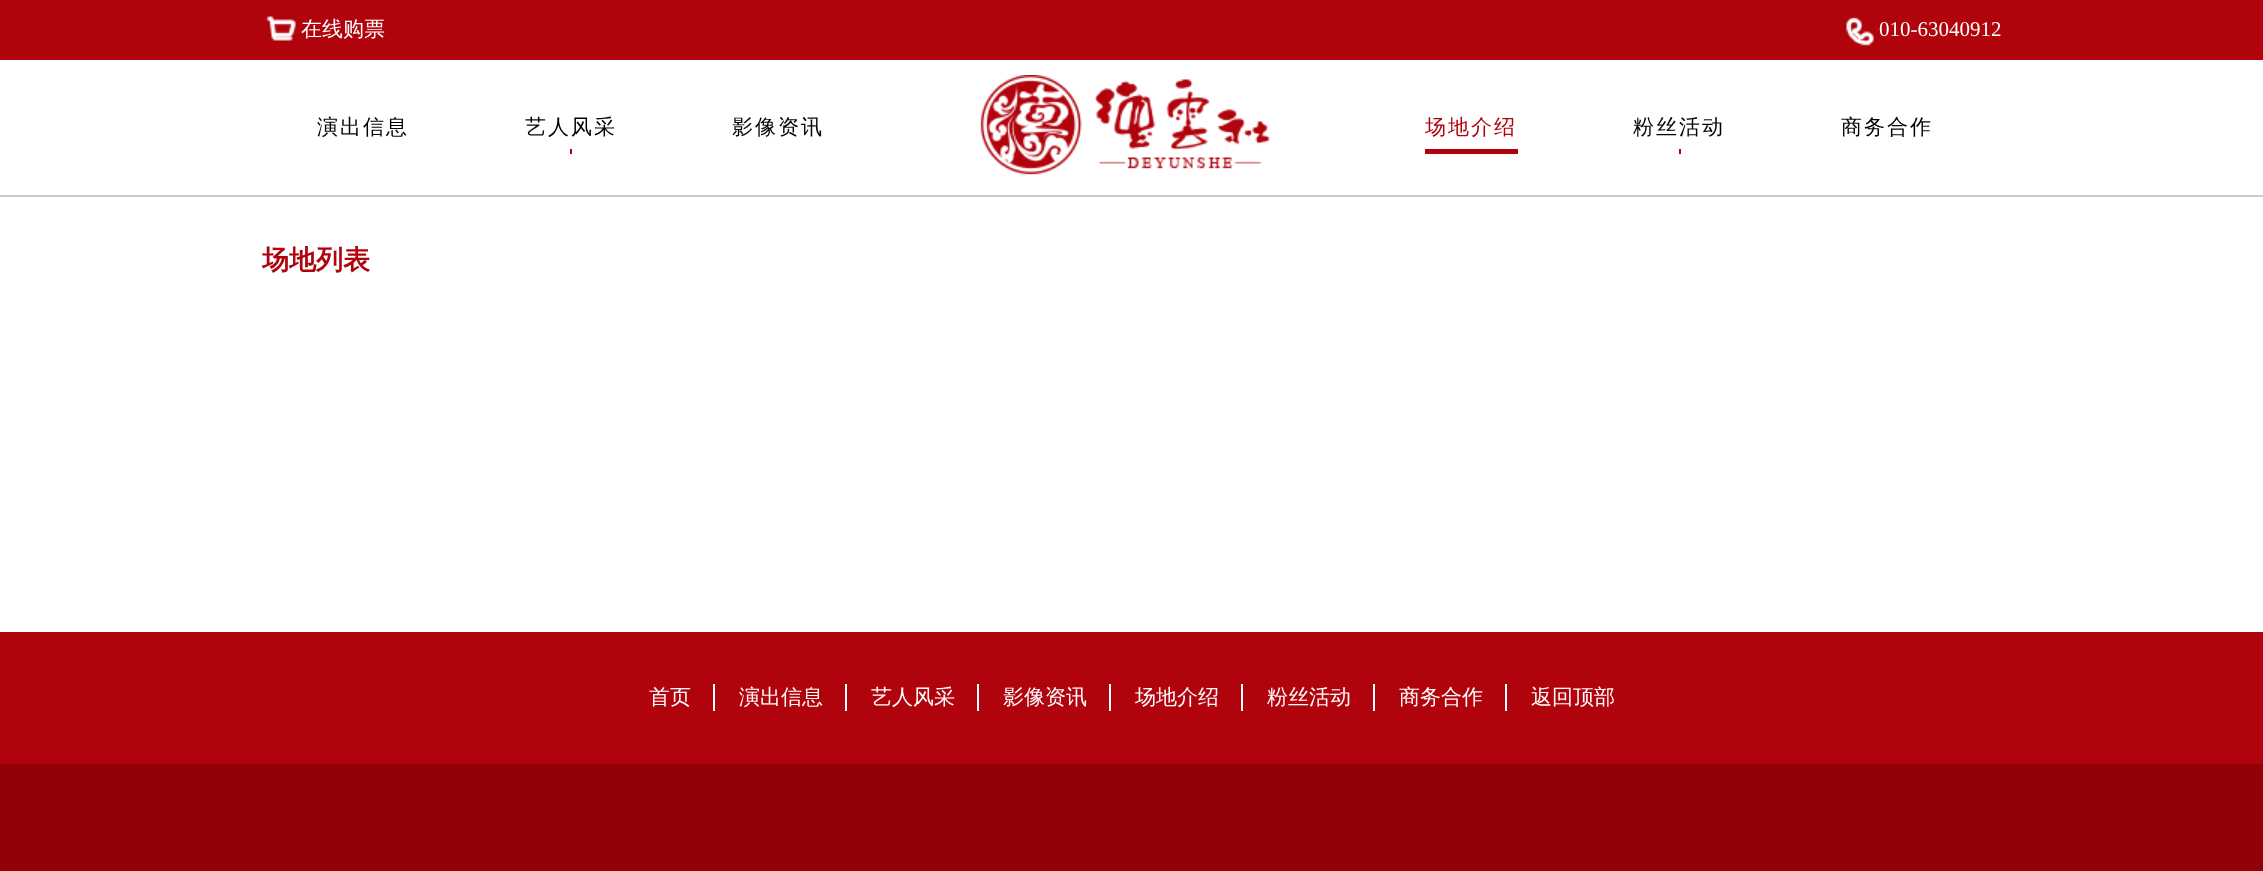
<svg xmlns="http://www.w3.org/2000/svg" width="2263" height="871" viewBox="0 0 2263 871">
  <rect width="100%" height="100%" fill="rgb(255,255,255)"/>
  <rect x="0" y="195" width="2263" height="2" fill="rgb(204,204,204)"/>
  <rect x="0" y="0" width="2263" height="60" fill="rgb(177,3,12)"/>
  <image x="266" y="16" width="30" height="25" href="pic1.png"/>
  <text x="301" y="36" font-family="WenQuanYi Zen Hei" font-size="21" font-weight="500" fill="rgb(255,255,255)">在线购票</text>
  <image x="1846" y="17" width="28" height="29" href="pic2.png"/>
  <text x="1879" y="36" font-family="Liberation Serif" font-size="21" fill="rgb(255,255,255)">010-63040912</text>
  <g font-family="WenQuanYi Zen Hei" font-size="21" font-weight="500" letter-spacing="2" fill="rgb(2,2,2)">
    <text x="317" y="134">演出信息</text>
    <text x="525" y="134">艺人风采</text>
  </g>
  <rect x="570" y="149" width="2" height="5" fill="rgb(176,2,12)"/>
  <text x="732" y="134" font-family="WenQuanYi Zen Hei" font-size="21" font-weight="500" letter-spacing="2" fill="rgb(2,2,2)">影像资讯</text>
  <image x="980" y="75" width="290" height="100" href="pic3.png"/>
  <text x="1425" y="134" font-family="WenQuanYi Zen Hei" font-size="21" font-weight="500" letter-spacing="2" fill="rgb(176,2,12)">场地介绍</text>
  <rect x="1425" y="149" width="93" height="5" fill="rgb(176,2,12)"/>
  <text x="1633" y="134" font-family="WenQuanYi Zen Hei" font-size="21" font-weight="500" letter-spacing="2" fill="rgb(2,2,2)">粉丝活动</text>
  <rect x="1679" y="149" width="2" height="5" fill="rgb(176,2,12)"/>
  <text x="1841" y="134" font-family="WenQuanYi Zen Hei" font-size="21" font-weight="500" letter-spacing="2" fill="rgb(2,2,2)">商务合作</text>
  <text x="262" y="269" font-family="WenQuanYi Zen Hei" font-size="27" font-weight="bold" fill="rgb(176,2,12)">场地列表</text>
  <rect x="0" y="764" width="2263" height="107" fill="rgb(145,1,6)"/>
  <rect x="0" y="632" width="2263" height="132" fill="rgb(177,3,12)"/>
  <rect x="713" y="684" width="2" height="27" fill="rgb(255,255,255)"/>
  <text x="649" y="704" font-family="WenQuanYi Zen Hei" font-size="21" font-weight="500" fill="rgb(255,255,255)">首页</text>
  <rect x="845" y="684" width="2" height="27" fill="rgb(255,255,255)"/>
  <text x="739" y="704" font-family="WenQuanYi Zen Hei" font-size="21" font-weight="500" fill="rgb(255,255,255)">演出信息</text>
  <rect x="977" y="684" width="2" height="27" fill="rgb(255,255,255)"/>
  <text x="871" y="704" font-family="WenQuanYi Zen Hei" font-size="21" font-weight="500" fill="rgb(255,255,255)">艺人风采</text>
  <rect x="1109" y="684" width="2" height="27" fill="rgb(255,255,255)"/>
  <text x="1003" y="704" font-family="WenQuanYi Zen Hei" font-size="21" font-weight="500" fill="rgb(255,255,255)">影像资讯</text>
  <rect x="1241" y="684" width="2" height="27" fill="rgb(255,255,255)"/>
  <text x="1135" y="704" font-family="WenQuanYi Zen Hei" font-size="21" font-weight="500" fill="rgb(255,255,255)">场地介绍</text>
  <rect x="1373" y="684" width="2" height="27" fill="rgb(255,255,255)"/>
  <text x="1267" y="704" font-family="WenQuanYi Zen Hei" font-size="21" font-weight="500" fill="rgb(255,255,255)">粉丝活动</text>
  <rect x="1505" y="684" width="2" height="27" fill="rgb(255,255,255)"/>
  <g font-family="WenQuanYi Zen Hei" font-size="21" font-weight="500" fill="rgb(255,255,255)">
    <text x="1399" y="704">商务合作</text>
    <text x="1531" y="704">返回顶部</text>
  </g>
</svg>
